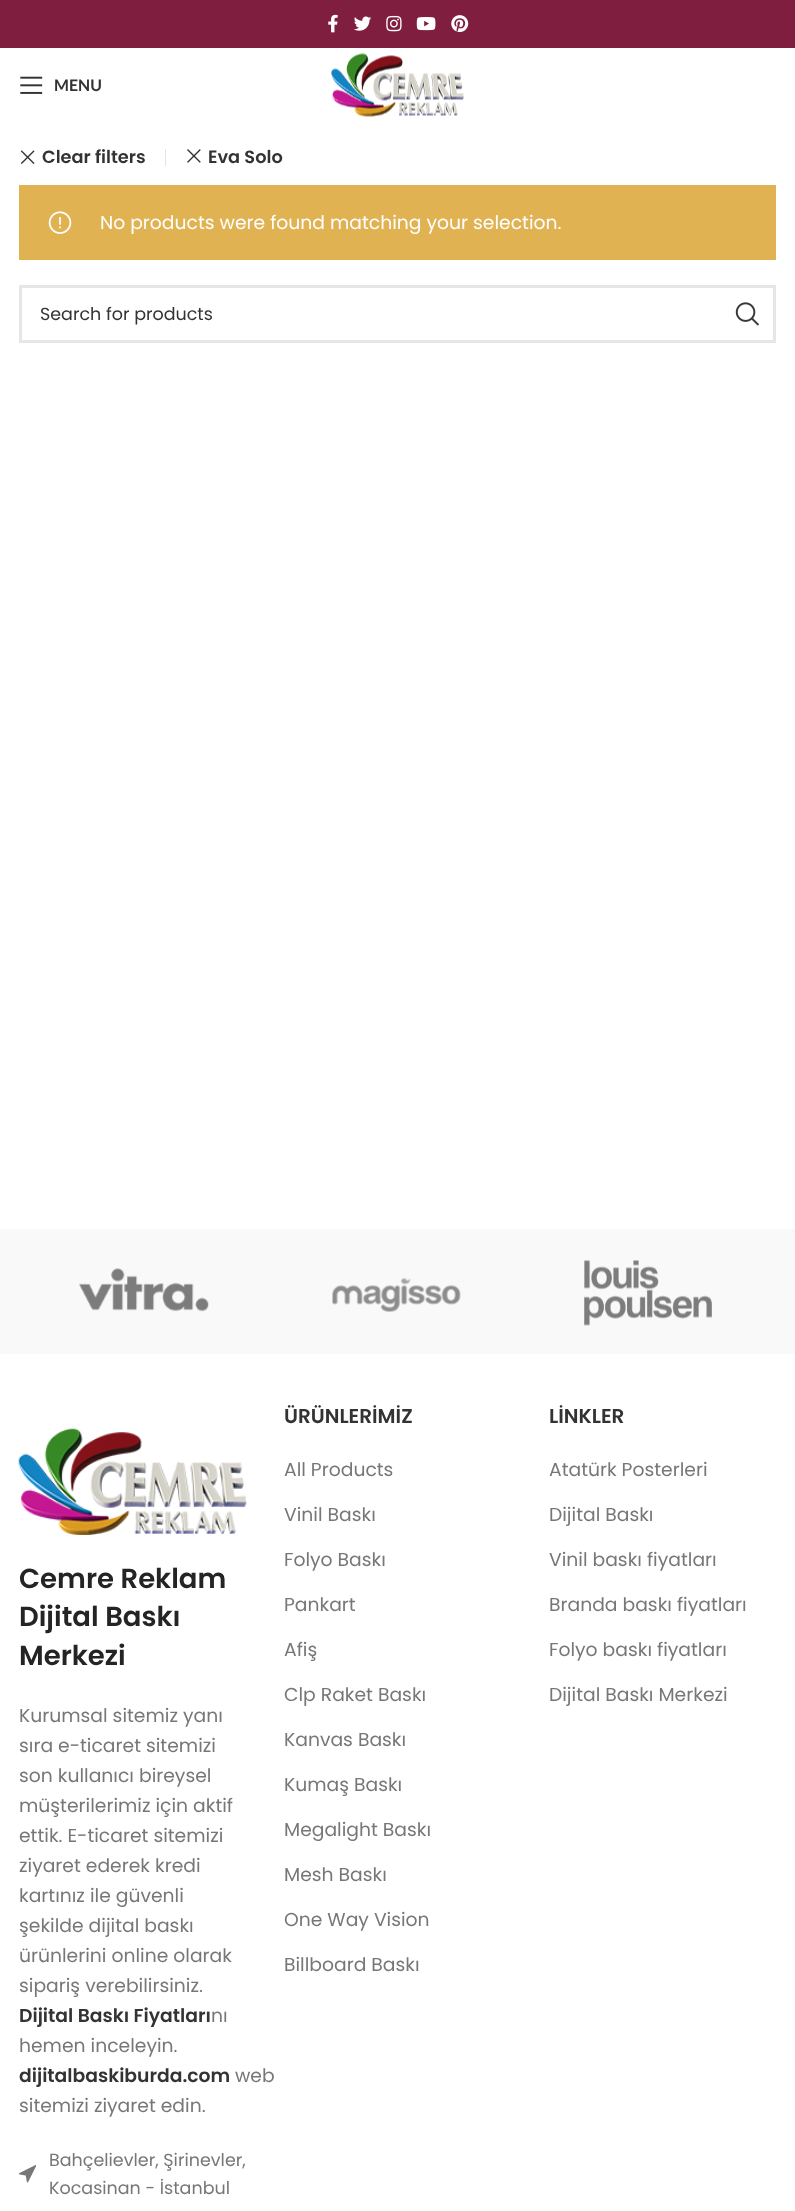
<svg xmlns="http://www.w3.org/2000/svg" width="795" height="2211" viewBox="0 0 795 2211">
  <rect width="100%" height="100%" fill="rgb(255,255,255)"/>
  <rect x="0" y="0" width="795" height="48" fill="rgb(127,30,62)"/>
  <image x="328" y="14" width="10" height="19" href="pic1.png"/>
  <image x="354" y="16" width="18" height="15" href="pic2.png"/>
  <image x="386" y="15" width="16" height="17" href="pic3.png"/>
  <image x="416" y="17" width="20" height="14" href="pic4.png"/>
  <image x="451" y="15" width="18" height="18" href="pic5.png"/>
  <image x="20" y="76" width="23" height="18" href="pic6.png"/>
  <text x="54" y="91" font-family="Lato" font-size="16" font-weight="bold" fill="rgb(51,51,51)">MENU</text>
  <image x="331" y="53" width="133" height="64" href="pic7.png"/>
  <rect x="165" y="149" width="1" height="17" fill="rgb(228,228,228)"/>
  <image x="20" y="150" width="15" height="14" href="pic8.png"/>
  <text x="42" y="163" font-family="Poppins" font-size="17.75" font-weight="600" fill="rgb(51,51,51)">Clear filters</text>
  <image x="187" y="149" width="14" height="14" href="pic9.png"/>
  <text x="208" y="163" font-family="Poppins" font-size="17.75" font-weight="600" fill="rgb(51,51,51)">Eva Solo</text>
  <rect x="19" y="185" width="757" height="75" fill="rgb(224,178,82)"/>
  <image x="48" y="211" width="24" height="23" href="pic10.png"/>
  <text x="100" y="229" font-family="Poppins" font-size="18.75" fill="rgb(255,255,255)">No products were found matching your selection.</text>
  <rect x="20.5" y="286.5" width="754" height="55" fill="none" stroke="rgb(230,230,230)" stroke-width="3"/>
  <text x="40" y="320" font-family="Poppins" font-size="17.5" fill="rgb(51,51,51)">Search for products</text>
  <image x="735" y="302" width="24" height="24" href="pic11.png"/>
  <rect x="0" y="1229" width="795" height="125" fill="rgb(249,249,249)"/>
  <image x="79" y="1268" width="130" height="44" href="pic12.png"/>
  <image x="332" y="1278" width="129" height="34" href="pic13.png"/>
  <image x="584" y="1260" width="128" height="66" href="pic14.png"/>
  <image x="18" y="1428" width="229" height="107" href="pic15.png"/>
  <g font-family="Poppins" font-size="27.5" font-weight="600" fill="rgb(36,36,36)">
    <text>
      <tspan x="19" y="1588">Cemre Reklam</tspan>
      <tspan x="19" y="1626">Dijital Baskı</tspan>
      <tspan x="19" y="1665">Merkezi</tspan>
    </text>
  </g>
  <g font-family="Poppins" font-size="18.75" fill="rgb(119,119,119)">
    <text>
      <tspan x="19" y="1722">Kurumsal sitemiz yanı</tspan>
      <tspan x="19" y="1752">sıra e-ticaret sitemizi</tspan>
      <tspan x="19" y="1782">son kullanıcı bireysel</tspan>
      <tspan x="19" y="1812">müşterilerimiz için aktif</tspan>
      <tspan x="19" y="1842">ettik. E-ticaret sitemizi</tspan>
      <tspan x="19" y="1872">ziyaret ederek kredi</tspan>
      <tspan x="19" y="1902">kartınız ile güvenli</tspan>
      <tspan x="19" y="1932">şekilde dijital baskı</tspan>
      <tspan x="19" y="1962">ürünlerini online olarak</tspan>
      <tspan x="19" y="1992">sipariş verebilirsiniz.</tspan>
    </text>
  </g>
  <text x="19" y="2022" font-family="Poppins" font-size="18.75" font-weight="600" fill="rgb(51,51,51)">Dijital Baskı Fiyatları</text>
  <g font-family="Poppins" font-size="18.75" fill="rgb(119,119,119)">
    <text x="211" y="2022">nı</text>
    <text x="19" y="2052">hemen inceleyin.</text>
  </g>
  <text x="19" y="2082" font-family="Poppins" font-size="18.75" font-weight="600" fill="rgb(51,51,51)">dijitalbaskiburda.com</text>
  <g font-family="Poppins" font-size="18.75" fill="rgb(119,119,119)">
    <text x="235" y="2082">web</text>
    <text x="19" y="2112">sitemizi ziyaret edin.</text>
  </g>
  <image x="19" y="2165" width="17" height="18" href="pic16.png"/>
  <g font-family="Poppins" font-size="17.5" fill="rgb(119,119,119)">
    <text>
      <tspan x="49" y="2166">Bahçelievler, Şirinevler,</tspan>
      <tspan x="49" y="2194">Kocasinan - İstanbul</tspan>
    </text>
  </g>
  <text x="284" y="1423" font-family="Poppins" font-size="20" font-weight="600" fill="rgb(51,51,51)">ÜRÜNLERİMİZ</text>
  <g font-family="Poppins" font-size="18.75" fill="rgb(119,119,119)">
    <text x="284" y="1476">All Products</text>
    <text x="284" y="1521">Vinil Baskı</text>
    <text x="284" y="1566">Folyo Baskı</text>
    <text x="284" y="1611">Pankart</text>
    <text x="284" y="1656">Afiş</text>
    <text x="284" y="1701">Clp Raket Baskı</text>
    <text x="284" y="1746">Kanvas Baskı</text>
    <text x="284" y="1791">Kumaş Baskı</text>
    <text x="284" y="1836">Megalight Baskı</text>
    <text x="284" y="1881">Mesh Baskı</text>
    <text x="284" y="1926">One Way Vision</text>
    <text x="284" y="1971">Billboard Baskı</text>
  </g>
  <text x="549" y="1423" font-family="Poppins" font-size="20" font-weight="600" fill="rgb(51,51,51)">LİNKLER</text>
  <g font-family="Poppins" font-size="18.75" fill="rgb(119,119,119)">
    <text x="549" y="1476">Atatürk Posterleri</text>
    <text x="549" y="1521">Dijital Baskı</text>
    <text x="549" y="1566">Vinil baskı fiyatları</text>
    <text x="549" y="1611">Branda baskı fiyatları</text>
    <text x="549" y="1656">Folyo baskı fiyatları</text>
    <text x="549" y="1701">Dijital Baskı Merkezi</text>
  </g>
</svg>
